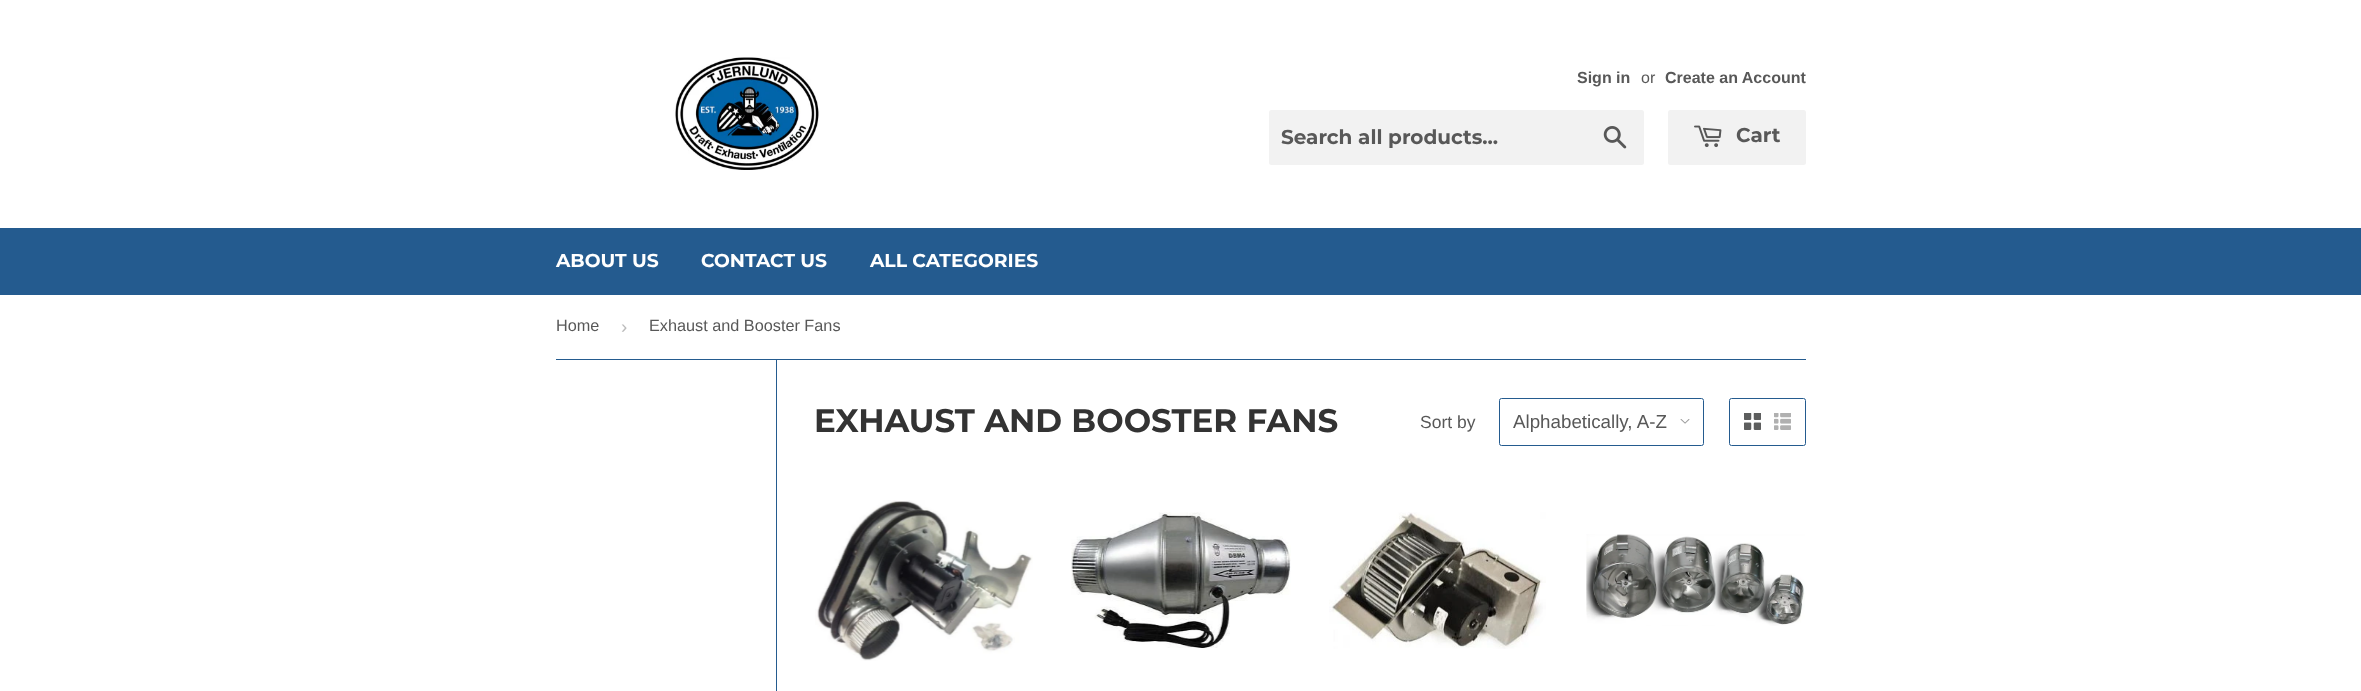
<svg xmlns="http://www.w3.org/2000/svg" width="2361" height="691" viewBox="0 0 2361 691">
  <rect width="100%" height="100%" fill="rgb(255,255,255)"/>
  <image x="673" y="57" width="146" height="113" href="pic1.png"/>
  <text x="1577" y="83" font-family="Liberation Sans" font-size="16" font-weight="bold" fill="rgb(88,88,88)">Sign in</text>
  <text x="1641" y="83" font-family="Liberation Sans" font-size="16" fill="rgb(88,88,88)">or</text>
  <text x="1665" y="83" font-family="Liberation Sans" font-size="16" font-weight="bold" fill="rgb(88,88,88)">Create an Account</text>
  <rect x="1269" y="110" width="375" height="55" rx="2.5" fill="rgb(242,242,242)"/>
  <text x="1281" y="144" font-family="Montserrat" font-size="20" font-weight="100" fill="rgb(88,88,88)">Search all products...</text>
  <image x="1603" y="126" width="24" height="23" href="pic2.png"/>
  <rect x="1668" y="110" width="138" height="55" rx="2.5" fill="rgb(242,242,242)"/>
  <image x="1694" y="125" width="28" height="23" href="pic3.png"/>
  <text x="1736" y="142" font-family="Montserrat" font-size="20" font-weight="100" fill="rgb(88,88,88)">Cart</text>
  <rect x="0" y="228" width="2361" height="67" fill="rgb(36,91,143)"/>
  <g font-family="Montserrat" font-size="18.75" font-weight="100" fill="rgb(255,255,255)">
    <text x="556" y="267">ABOUT US</text>
    <text x="701" y="267">CONTACT US</text>
    <text x="870" y="267">ALL CATEGORIES</text>
  </g>
  <rect x="556" y="359" width="1250" height="1" fill="rgb(36,91,143)"/>
  <text x="556" y="331" font-family="Liberation Sans" font-size="16.25" fill="rgb(88,88,88)">Home</text>
  <text x="621" y="333" font-family="Liberation Sans" font-size="18.75" fill="rgb(187,187,187)">›</text>
  <text x="649" y="331" font-family="Liberation Sans" font-size="16.25" fill="rgb(88,88,88)">Exhaust and Booster Fans</text>
  <rect x="776" y="360" width="1" height="331" fill="rgb(36,91,143)"/>
  <text x="814" y="432" font-family="Montserrat" font-size="32.5" font-weight="100" fill="rgb(51,51,51)">EXHAUST AND BOOSTER FANS</text>
  <text x="1420" y="428" font-family="Liberation Sans" font-size="17.5" fill="rgb(88,88,88)">Sort by</text>
  <image x="1680" y="419" width="10" height="5" href="pic4.png"/>
  <rect x="1499.5" y="398.5" width="204" height="47" rx="2" fill="none" stroke="rgb(36,91,143)"/>
  <text x="1513" y="428" font-family="Liberation Sans" font-size="18.75" fill="rgb(88,88,88)">Alphabetically, A-Z</text>
  <rect x="1729.5" y="398.5" width="76" height="47" rx="2" fill="none" stroke="rgb(36,91,143)"/>
  <image x="1744" y="413" width="17" height="17" href="pic5.png"/>
  <image x="1774" y="413" width="17" height="17" href="pic6.png"/>
  <image x="815" y="500" width="218" height="161" href="pic7.png"/>
  <image x="1071" y="512" width="220" height="136" href="pic8.png"/>
  <image x="1329" y="512" width="217" height="137" href="pic9.png"/>
  <image x="1586" y="534" width="219" height="92" href="pic10.png"/>
</svg>
